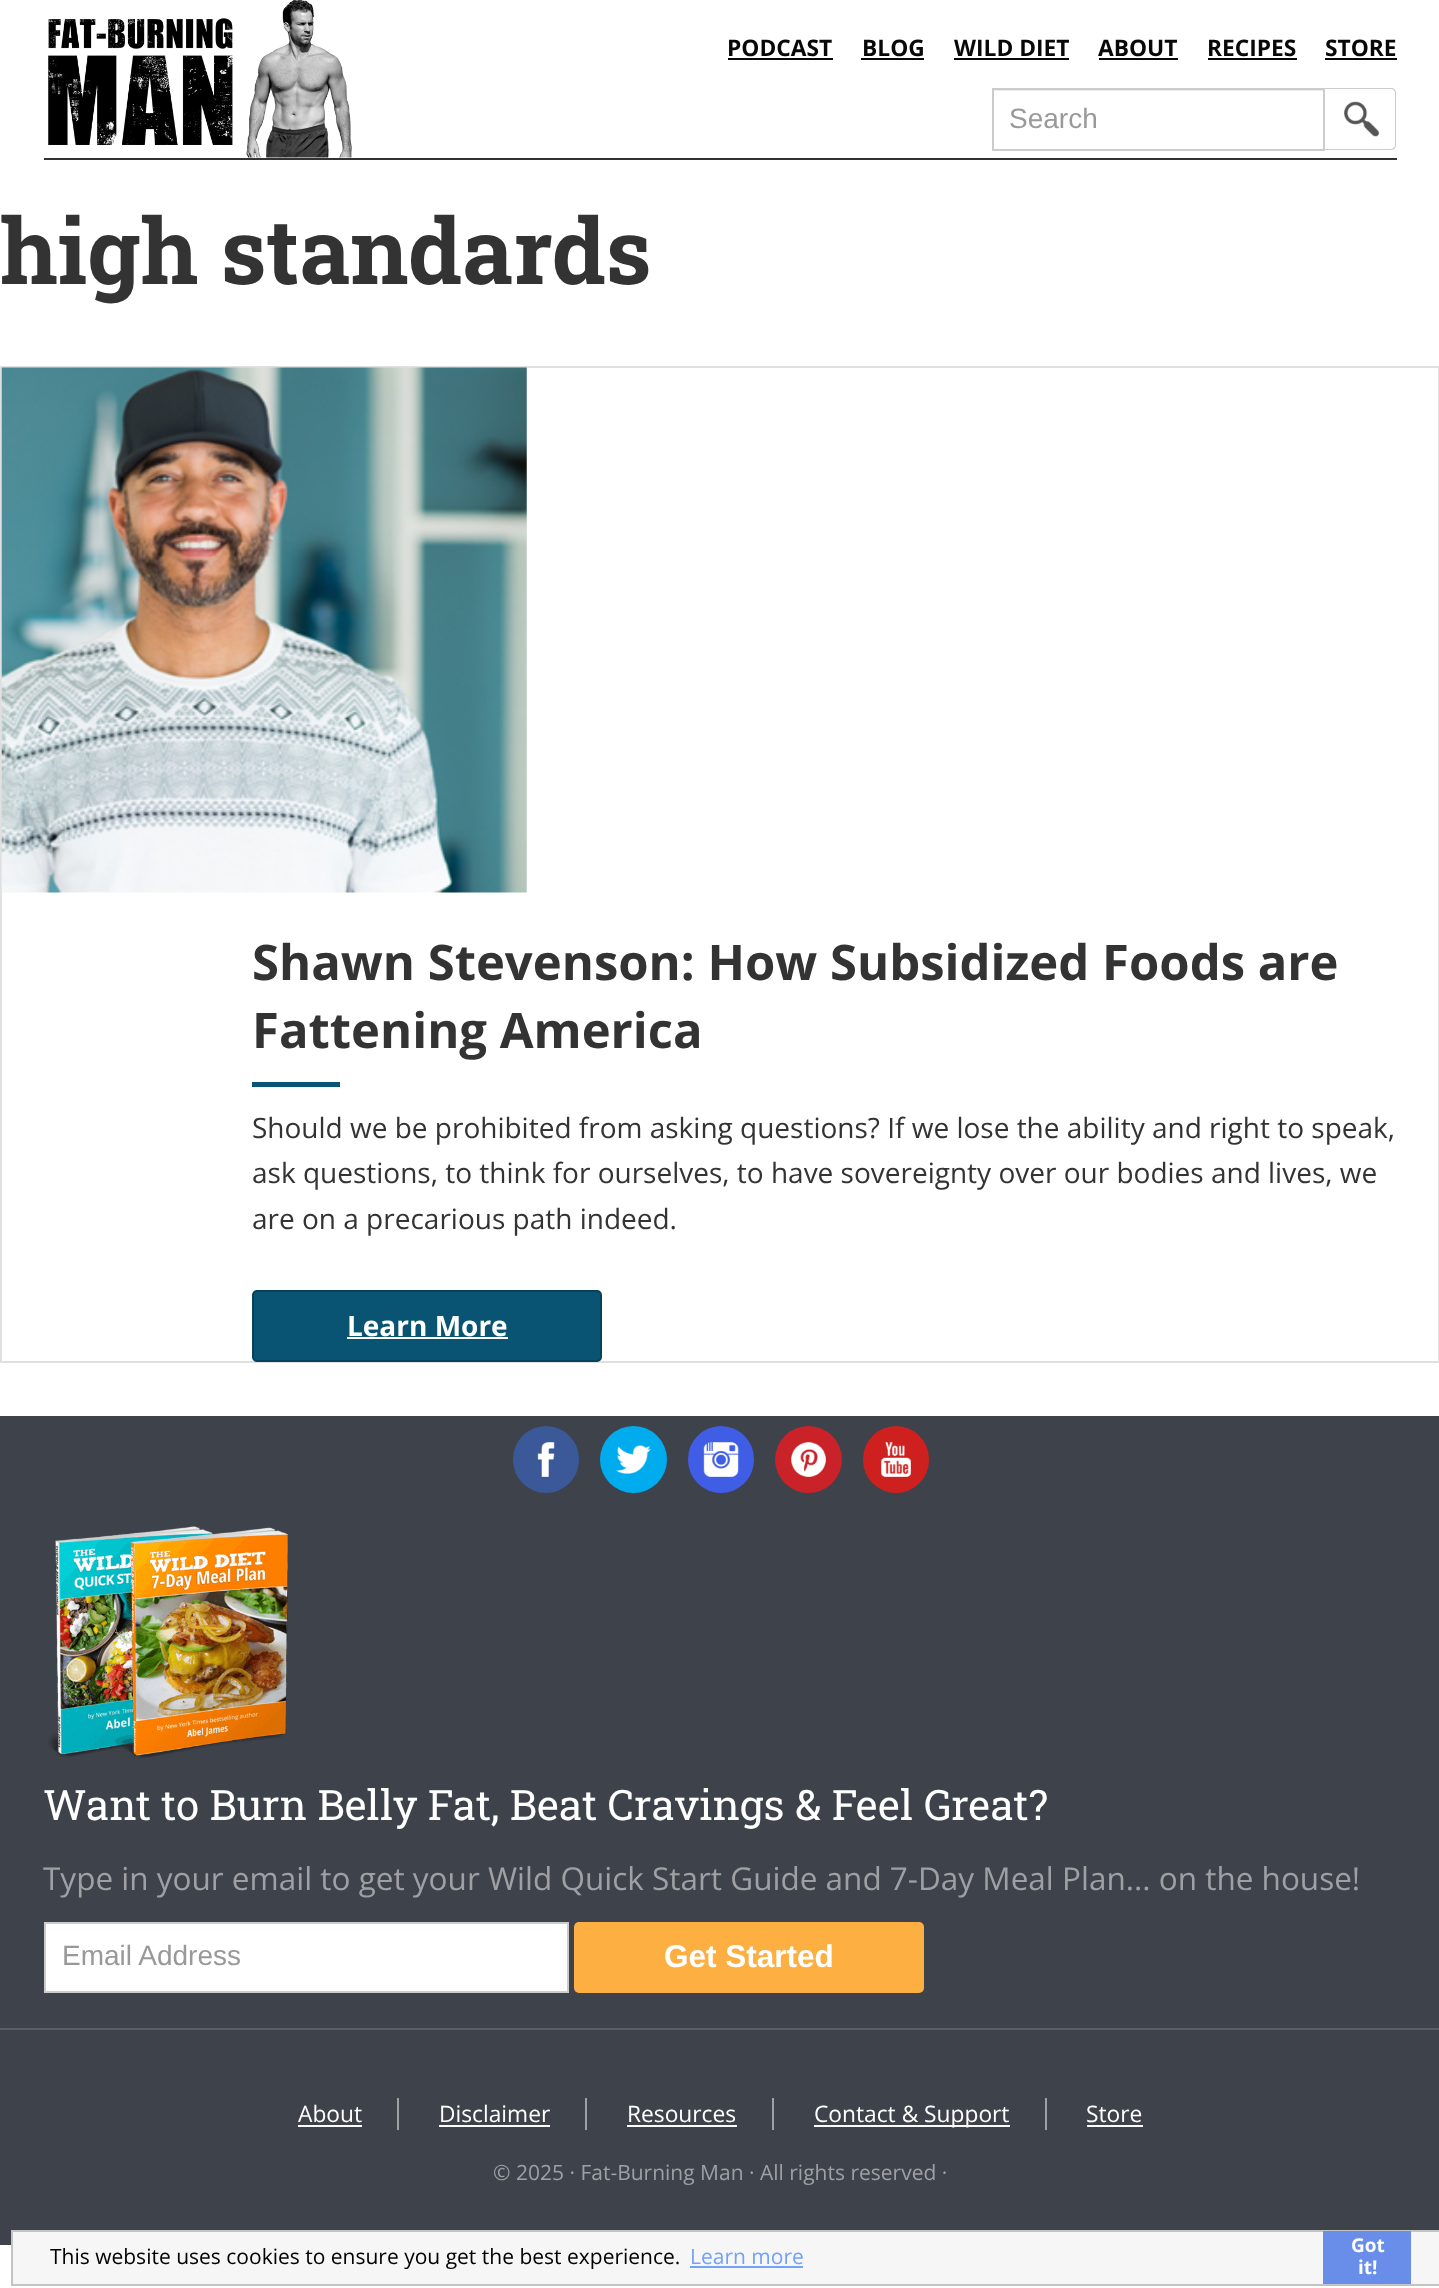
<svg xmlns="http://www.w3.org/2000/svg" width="1439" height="2288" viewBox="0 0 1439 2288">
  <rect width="100%" height="100%" fill="rgb(255,255,255)"/>
  <rect x="44" y="158" width="1353" height="2" fill="rgb(51,51,51)"/>
  <image x="48" y="0" width="304" height="158" href="pic1.png"/>
  <text x="727" y="56" font-family="Open Sans" font-size="22.75" font-weight="bold" fill="rgb(8,8,8)">PODCAST</text>
  <rect x="728" y="58" width="105" height="2" fill="rgb(8,8,8)"/>
  <text x="862" y="56" font-family="Open Sans" font-size="22.75" font-weight="bold" fill="rgb(8,8,8)">BLOG</text>
  <rect x="861" y="58" width="63" height="2" fill="rgb(8,8,8)"/>
  <text x="954" y="56" font-family="Open Sans" font-size="22.75" font-weight="bold" fill="rgb(8,8,8)">WILD DIET</text>
  <rect x="954" y="58" width="115" height="2" fill="rgb(8,8,8)"/>
  <text x="1098" y="56" font-family="Open Sans" font-size="22.75" font-weight="bold" fill="rgb(8,8,8)">ABOUT</text>
  <rect x="1099" y="58" width="79" height="2" fill="rgb(8,8,8)"/>
  <text x="1207" y="56" font-family="Open Sans" font-size="22.75" font-weight="bold" fill="rgb(8,8,8)">RECIPES</text>
  <rect x="1208" y="58" width="89" height="2" fill="rgb(8,8,8)"/>
  <text x="1325" y="56" font-family="Open Sans" font-size="22.75" font-weight="bold" fill="rgb(8,8,8)">STORE</text>
  <rect x="1325" y="58" width="72" height="2" fill="rgb(8,8,8)"/>
  <rect x="994" y="90" width="329" height="1" fill="rgb(236,236,236)"/>
  <rect x="993" y="89" width="331" height="61" fill="none" stroke="rgb(204,204,204)" stroke-width="2"/>
  <text x="1009" y="128" font-family="Liberation Sans" font-size="28" fill="rgb(153,153,153)">Search</text>
  <image x="1344" y="101" width="35" height="36" href="pic2.png"/>
  <path d="M1325 88H1391C1394 88 1396 90 1396 93V145C1396 148 1394 150 1391 150H1325ZM1325 89H1391C1393 89 1395 91 1395 93V145C1395 147 1393 149 1391 149H1325Z" fill="rgb(204,204,204)" fill-rule="evenodd"/>
  <text x="0" y="284" font-family="Roboto Slab" font-size="91" font-weight="bold" fill="rgb(51,51,51)">high standards</text>
  <rect x="1" y="367" width="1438" height="995" fill="none" stroke="rgb(224,224,224)" stroke-width="2"/>
  <image x="1" y="367" width="526" height="526" href="pic3.png"/>
  <g font-family="Open Sans" font-size="49" font-weight="bold" fill="rgb(51,51,51)">
    <text>
      <tspan x="252" y="980">Shawn Stevenson: How Subsidized Foods are</tspan>
      <tspan x="252" y="1048">Fattening America</tspan>
    </text>
  </g>
  <rect x="252" y="1082" width="88" height="5" fill="rgb(8,84,118)"/>
  <g font-family="Open Sans" font-size="28" fill="rgb(51,51,51)">
    <text>
      <tspan x="252" y="1138">Should we be prohibited from asking questions? If we lose the ability and right to speak,</tspan>
      <tspan x="252" y="1183">ask questions, to think for ourselves, to have sovereignty over our bodies and lives, we</tspan>
      <tspan x="252" y="1229">are on a precarious path indeed.</tspan>
    </text>
  </g>
  <rect x="253" y="1291" width="348" height="70" rx="4" fill="rgb(8,84,114)" stroke="rgb(6,66,90)" stroke-width="2"/>
  <text x="347" y="1336" font-family="Open Sans" font-size="28" font-weight="bold" fill="rgb(255,255,255)">Learn More</text>
  <rect x="347" y="1337" width="161" height="2" fill="rgb(255,255,255)"/>
  <rect x="0" y="1416" width="1439" height="612" fill="rgb(62,66,74)"/>
  <rect x="0" y="2028" width="1439" height="2" fill="rgb(91,94,99)"/>
  <rect x="513" y="1426" width="66" height="67" rx="33" fill="rgb(59,89,152)"/>
  <image x="537" y="1442" width="18" height="35" href="pic4.png"/>
  <circle cx="633.5" cy="1459.5" r="33.5" fill="rgb(0,172,237)"/>
  <image x="616" y="1445" width="35" height="29" href="pic5.png"/>
  <rect x="688" y="1426" width="66" height="67" rx="33" fill="rgb(64,93,230)"/>
  <image x="703" y="1442" width="36" height="35" href="pic6.png"/>
  <circle cx="808.5" cy="1459.5" r="33.5" fill="rgb(201,34,40)"/>
  <image x="791" y="1442" width="35" height="35" href="pic7.png"/>
  <rect x="863" y="1426" width="66" height="67" rx="33" fill="rgb(205,32,31)"/>
  <image x="881" y="1442" width="30" height="35" href="pic8.png"/>
  <image x="48" y="1526" width="240" height="232" href="pic9.png"/>
  <text x="43" y="1820" font-family="Roboto Slab" font-size="42" fill="rgb(255,255,255)">Want to Burn Belly Fat, Beat Cravings &amp; Feel Great?</text>
  <text x="43" y="1890" font-family="Open Sans" font-size="31.5" fill="rgb(158,160,164)">Type in your email to get your Wild Quick Start Guide and 7-Day Meal Plan... on the house!</text>
  <rect x="45" y="1923" width="523" height="69" fill="rgb(255,255,255)" stroke="rgb(204,204,204)" stroke-width="2"/>
  <text x="62" y="1965" font-family="Liberation Sans" font-size="28" fill="rgb(153,153,153)">Email Address</text>
  <rect x="574" y="1922" width="350" height="71" rx="5" fill="rgb(253,176,65)"/>
  <text x="664" y="1967" font-family="Liberation Sans" font-size="31.5" font-weight="bold" fill="rgb(255,255,255)">Get Started</text>
  <rect x="0" y="2030" width="1439" height="215" fill="rgb(62,66,74)"/>
  <rect x="397" y="2098" width="2" height="32" fill="rgb(158,160,164)"/>
  <text x="298" y="2122" font-family="Open Sans" font-size="22.75" fill="rgb(255,255,255)">About</text>
  <rect x="298" y="2125" width="64" height="2" fill="rgb(255,255,255)"/>
  <rect x="585" y="2098" width="2" height="32" fill="rgb(158,160,164)"/>
  <text x="439" y="2122" font-family="Open Sans" font-size="22.75" fill="rgb(255,255,255)">Disclaimer</text>
  <rect x="439" y="2125" width="111" height="2" fill="rgb(255,255,255)"/>
  <rect x="772" y="2098" width="2" height="32" fill="rgb(158,160,164)"/>
  <text x="627" y="2122" font-family="Open Sans" font-size="22.75" fill="rgb(255,255,255)">Resources</text>
  <rect x="627" y="2125" width="110" height="2" fill="rgb(255,255,255)"/>
  <rect x="1045" y="2098" width="2" height="32" fill="rgb(158,160,164)"/>
  <rect x="814" y="2125" width="196" height="2" fill="rgb(255,255,255)"/>
  <g font-family="Open Sans" font-size="22.75" fill="rgb(255,255,255)">
    <text x="814" y="2122">Contact &amp; Support</text>
    <text x="1086" y="2122">Store</text>
  </g>
  <rect x="1087" y="2125" width="56" height="2" fill="rgb(255,255,255)"/>
  <text x="493" y="2180" font-family="Open Sans" font-size="21" fill="rgb(158,160,164)">© 2025 · Fat-Burning Man · All rights reserved ·</text>
  <rect x="12" y="2231" width="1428" height="54" fill="rgb(246,246,246)" stroke="rgb(196,196,196)" stroke-width="2"/>
  <text x="50" y="2264" font-family="Open Sans" font-size="21" fill="rgb(0,0,0)">This website uses cookies to ensure you get the best experience.</text>
  <text x="690" y="2264" font-family="Open Sans" font-size="21" fill="rgb(116,161,249)">Learn more</text>
  <rect x="690" y="2266" width="113" height="2" fill="rgb(116,161,249)"/>
  <rect x="1323" y="2231" width="88" height="53" fill="rgb(104,142,233)"/>
  <g font-family="Open Sans" font-size="19" font-weight="bold" fill="rgb(255,255,255)">
    <text x="1351" y="2252">Got</text>
    <text x="1358" y="2274">it!</text>
  </g>
</svg>
